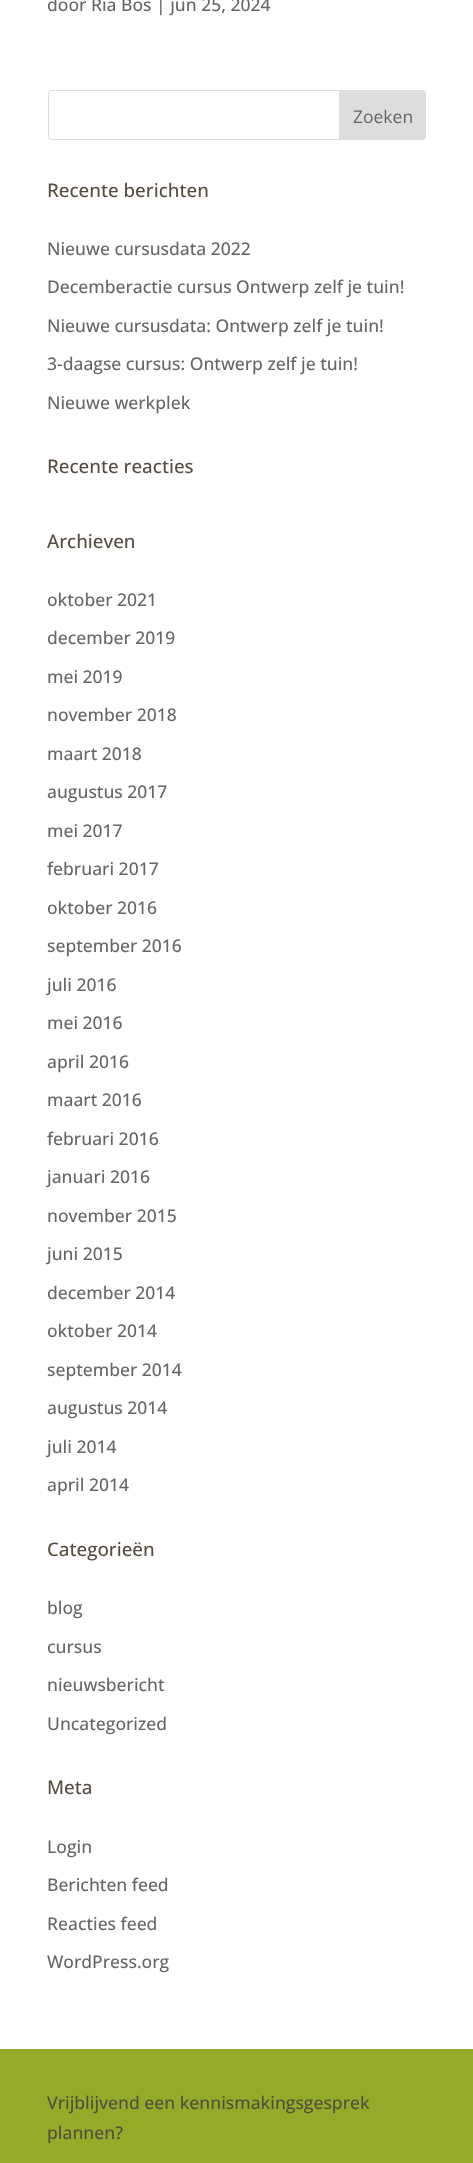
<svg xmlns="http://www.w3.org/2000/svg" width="473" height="2163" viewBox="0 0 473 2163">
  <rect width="100%" height="100%" fill="rgb(255,255,255)"/>
  <text x="47" y="11" font-family="Open Sans" font-size="17.5" font-weight="500" fill="rgb(102,102,102)">door Ria Bos | jun 25, 2024</text>
  <rect x="48.5" y="90.5" width="377" height="49" rx="3.5" fill="none" stroke="rgb(221,221,221)"/>
  <path d="M339.5 90.5H422C424 90.5 425.5 92 425.5 94V136C425.5 138 424 139.5 422 139.5H339.5Z" fill="rgb(221,221,221)" stroke="rgb(221,221,221)"/>
  <text x="353" y="123" font-family="Open Sans" font-size="17.5" fill="rgb(102,102,102)">Zoeken</text>
  <text x="47" y="197" font-family="Open Sans" font-size="18.75" font-weight="500" fill="rgb(86,77,65)">Recente berichten</text>
  <g font-family="Open Sans" font-size="17.5" font-weight="500" fill="rgb(102,102,102)">
    <text x="47" y="255">Nieuwe cursusdata 2022</text>
    <text x="47" y="293">Decemberactie cursus Ontwerp zelf je tuin!</text>
    <text x="47" y="332">Nieuwe cursusdata: Ontwerp zelf je tuin!</text>
    <text x="47" y="370">3-daagse cursus: Ontwerp zelf je tuin!</text>
    <text x="47" y="409">Nieuwe werkplek</text>
  </g>
  <g font-family="Open Sans" font-size="18.75" font-weight="500" fill="rgb(86,77,65)">
    <text x="47" y="473">Recente reacties</text>
    <text x="47" y="548">Archieven</text>
  </g>
  <g font-family="Open Sans" font-size="17.5" font-weight="500" fill="rgb(102,102,102)">
    <text x="47" y="606">oktober 2021</text>
    <text x="47" y="644">december 2019</text>
    <text x="47" y="683">mei 2019</text>
    <text x="47" y="721">november 2018</text>
    <text x="47" y="760">maart 2018</text>
    <text x="47" y="798">augustus 2017</text>
    <text x="47" y="837">mei 2017</text>
    <text x="47" y="875">februari 2017</text>
    <text x="47" y="914">oktober 2016</text>
    <text x="47" y="952">september 2016</text>
    <text x="47" y="991">juli 2016</text>
    <text x="47" y="1029">mei 2016</text>
    <text x="47" y="1068">april 2016</text>
    <text x="47" y="1106">maart 2016</text>
    <text x="47" y="1145">februari 2016</text>
    <text x="47" y="1183">januari 2016</text>
    <text x="47" y="1222">november 2015</text>
    <text x="47" y="1260">juni 2015</text>
    <text x="47" y="1299">december 2014</text>
    <text x="47" y="1337">oktober 2014</text>
    <text x="47" y="1376">september 2014</text>
    <text x="47" y="1414">augustus 2014</text>
    <text x="47" y="1453">juli 2014</text>
    <text x="47" y="1491">april 2014</text>
  </g>
  <text x="47" y="1556" font-family="Open Sans" font-size="18.75" font-weight="500" fill="rgb(86,77,65)">Categorieën</text>
  <g font-family="Open Sans" font-size="17.5" font-weight="500" fill="rgb(102,102,102)">
    <text x="47" y="1614">blog</text>
    <text x="47" y="1653">cursus</text>
    <text x="47" y="1691">nieuwsbericht</text>
    <text x="47" y="1730">Uncategorized</text>
  </g>
  <text x="47" y="1794" font-family="Open Sans" font-size="18.75" font-weight="500" fill="rgb(86,77,65)">Meta</text>
  <g font-family="Open Sans" font-size="17.5" font-weight="500" fill="rgb(102,102,102)">
    <text x="47" y="1853">Login</text>
    <text x="47" y="1891">Berichten feed</text>
    <text x="47" y="1930">Reacties feed</text>
    <text x="47" y="1968">WordPress.org</text>
  </g>
  <rect x="0" y="2049" width="473" height="114" fill="rgb(148,171,41)"/>
  <g font-family="Open Sans" font-size="17.5" font-weight="500" fill="rgb(86,77,65)">
    <text>
      <tspan x="47" y="2109">Vrijblijvend een kennismakingsgesprek</tspan>
      <tspan x="47" y="2139">plannen?</tspan>
    </text>
  </g>
</svg>
